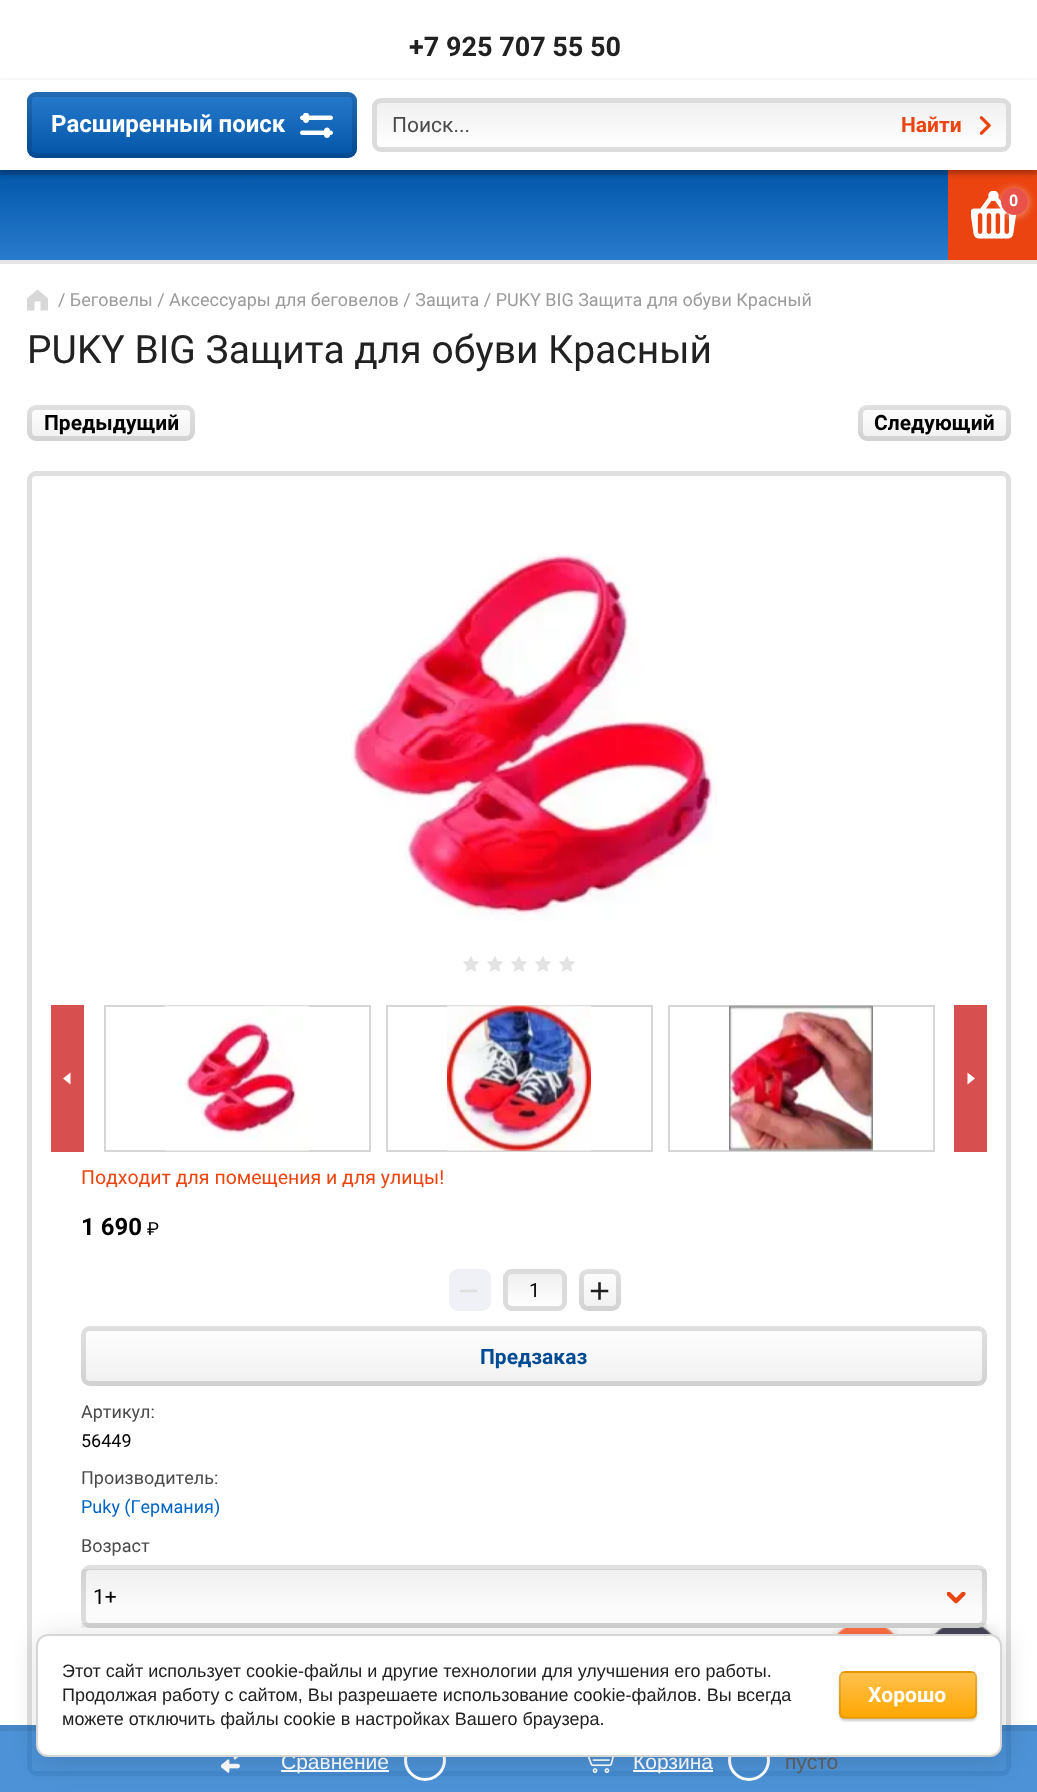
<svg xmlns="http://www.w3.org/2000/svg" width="1037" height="1792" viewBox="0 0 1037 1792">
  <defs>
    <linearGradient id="g1" gradientUnits="userSpaceOnUse" x1="519" y1="260" x2="519" y2="170"><stop offset="0" stop-color="rgb(40,123,205)"/><stop offset="1" stop-color="rgb(2,86,169)"/></linearGradient>
    <linearGradient id="g2" gradientUnits="userSpaceOnUse" x1="192" y1="91" x2="192" y2="158"><stop offset="0" stop-color="rgb(255,255,255)" stop-opacity="0.15"/><stop offset="1" stop-color="rgb(0,0,0)" stop-opacity="0.15"/></linearGradient>
    <clipPath id="clip1"><rect x="372" y="98" width="639" height="54" rx="9"/></clipPath>
    <linearGradient id="g3" gradientUnits="userSpaceOnUse" x1="692" y1="147" x2="692" y2="102"><stop offset="0" stop-color="rgb(255,255,255)"/><stop offset="1" stop-color="rgb(240,240,240)"/></linearGradient>
    <linearGradient id="g4" gradientUnits="userSpaceOnUse" x1="111" y1="405" x2="111" y2="441"><stop offset="0" stop-color="rgb(255,255,255)"/><stop offset="1" stop-color="rgb(240,240,240)"/></linearGradient>
    <linearGradient id="g5" gradientUnits="userSpaceOnUse" x1="935" y1="405" x2="935" y2="441"><stop offset="0" stop-color="rgb(255,255,255)"/><stop offset="1" stop-color="rgb(240,240,240)"/></linearGradient>
    <clipPath id="clip2"><rect x="503" y="1269" width="64" height="42" rx="9"/></clipPath>
    <linearGradient id="g6" gradientUnits="userSpaceOnUse" x1="535" y1="1307" x2="535" y2="1274"><stop offset="0" stop-color="rgb(255,255,255)"/><stop offset="1" stop-color="rgb(240,240,240)"/></linearGradient>
    <linearGradient id="g7" gradientUnits="userSpaceOnUse" x1="600" y1="1269" x2="600" y2="1311"><stop offset="0" stop-color="rgb(255,255,255)"/><stop offset="1" stop-color="rgb(240,240,240)"/></linearGradient>
    <linearGradient id="g8" gradientUnits="userSpaceOnUse" x1="534" y1="1326" x2="534" y2="1386"><stop offset="0" stop-color="rgb(255,255,255)"/><stop offset="1" stop-color="rgb(240,240,240)"/></linearGradient>
    <clipPath id="clip3"><rect x="81" y="1565" width="906" height="63" rx="9"/></clipPath>
    <linearGradient id="g9" gradientUnits="userSpaceOnUse" x1="534" y1="1623" x2="534" y2="1569"><stop offset="0" stop-color="rgb(255,255,255)"/><stop offset="1" stop-color="rgb(240,240,240)"/></linearGradient>
    <linearGradient id="g10" gradientUnits="userSpaceOnUse" x1="534" y1="1677" x2="534" y2="1623"><stop offset="0" stop-color="rgb(255,255,255)" stop-opacity="0.06"/><stop offset="1" stop-color="rgb(0,0,0)" stop-opacity="0.06"/></linearGradient>
    <clipPath id="clip4"><rect x="839" y="1671" width="138" height="48" rx="6"/></clipPath>
    <linearGradient id="g11" gradientUnits="userSpaceOnUse" x1="908" y1="1628" x2="908" y2="1673"><stop offset="0" stop-color="rgb(255,193,78)"/><stop offset="1" stop-color="rgb(255,166,1)"/></linearGradient>
    <linearGradient id="g12" gradientUnits="userSpaceOnUse" x1="908" y1="1673" x2="908" y2="1718"><stop offset="0" stop-color="rgb(255,193,78)"/><stop offset="1" stop-color="rgb(255,166,1)"/></linearGradient>
    <linearGradient id="g13" gradientUnits="userSpaceOnUse" x1="908" y1="1718" x2="908" y2="1763"><stop offset="0" stop-color="rgb(255,193,78)"/><stop offset="1" stop-color="rgb(255,166,1)"/></linearGradient>
  </defs>
  <rect width="100%" height="100%" fill="rgb(255,255,255)"/>
  <text x="409" y="56" font-family="Roboto" font-size="27" font-weight="bold" fill="rgb(33,33,33)">+7 925 707 55 50</text>
  <rect x="0" y="175" width="948" height="85" fill="url(#g1)"/>
  <rect x="0" y="170" width="948" height="5" fill="rgb(3,78,153)"/>
  <rect x="948" y="175" width="89" height="85" fill="rgb(235,68,16)"/>
  <rect x="948" y="170" width="89" height="5" fill="rgb(221,64,15)"/>
  <rect x="0" y="83" width="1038" height="90" fill="rgba(0,0,0,0.25)" filter="blur(3px)"/>
  <rect x="0" y="80" width="1037" height="90" fill="rgb(255,255,255)"/>
  <rect x="27" y="92" width="330" height="66" rx="9" fill="rgb(2,100,196)"/>
  <rect x="27" y="92" width="330" height="66" rx="9" fill="url(#g2)"/>
  <rect x="29.5" y="94.5" width="325" height="61" rx="6.5" fill="none" stroke="rgba(0,0,0,0.12)" stroke-width="5"/>
  <text x="51" y="132" font-family="Roboto" font-size="24" font-weight="bold" fill="rgb(255,255,255)">Расширенный поиск</text>
  <image x="300" y="113" width="33" height="25" href="pic1.png"/>
  <g clip-path="url(#clip1)">
    <rect x="372" y="102" width="639" height="45" fill="url(#g3)"/>
  </g>
  <rect x="374.5" y="100.5" width="634" height="49" rx="6.5" fill="none" stroke="rgb(220,220,220)" stroke-width="5"/>
  <text x="392" y="132" font-family="Roboto" font-size="21" fill="rgb(74,74,74)">Поиск...</text>
  <image x="980" y="116" width="11" height="19" href="pic2.png"/>
  <text x="901" y="132" font-family="Roboto" font-size="21" font-weight="bold" fill="rgb(235,68,16)">Найти</text>
  <rect x="0" y="260" width="1037" height="4" fill="rgb(230,230,230)"/>
  <image x="971" y="191" width="46" height="48" href="pic3.png"/>
  <rect x="1001" y="189" width="27" height="27" rx="13.5" fill="rgba(255,255,255,0.5)" filter="blur(4px)"/>
  <circle cx="1014.5" cy="201.5" r="13.5" fill="rgb(233,82,75)"/>
  <text x="1009" y="206" font-family="Roboto" font-size="16" font-weight="bold" fill="rgb(255,255,255)">0</text>
  <image x="27" y="290" width="21" height="21" href="pic4.png"/>
  <text x="58" y="306" font-family="Roboto" font-size="18" fill="rgb(155,155,155)">/ Беговелы / Аксессуары для беговелов / Защита / PUKY BIG Защита для обуви Красный</text>
  <text x="27" y="363" font-family="Roboto" font-size="39" fill="rgb(33,33,33)">PUKY BIG Защита для обуви Красный</text>
  <rect x="27" y="405" width="168" height="36" rx="9" fill="url(#g4)"/>
  <rect x="29.5" y="407.5" width="163" height="31" rx="6.5" fill="none" stroke="rgba(0,0,0,0.12)" stroke-width="5"/>
  <text x="44" y="430" font-family="Roboto" font-size="21" font-weight="bold" fill="rgb(0,0,0)">Предыдущий</text>
  <rect x="858" y="405" width="153" height="36" rx="9" fill="url(#g5)"/>
  <rect x="860.5" y="407.5" width="148" height="31" rx="6.5" fill="none" stroke="rgba(0,0,0,0.12)" stroke-width="5"/>
  <text x="874" y="430" font-family="Roboto" font-size="21" font-weight="bold" fill="rgb(0,0,0)">Следующий</text>
  <rect x="29.5" y="473.5" width="979" height="1300" rx="6.5" fill="none" stroke="rgb(224,224,224)" stroke-width="5"/>
  <image x="351" y="553" width="366" height="368" href="pic5.png"/>
  <image x="463" y="956" width="112" height="16" href="pic6.png"/>
  <rect x="51" y="1005" width="33" height="147" fill="rgb(216,79,79)"/>
  <path d="M70.5 1072.5V1084.5L63 1078.5Z" fill="rgb(255,255,255)"/>
  <rect x="954" y="1005" width="33" height="147" fill="rgb(216,79,79)"/>
  <path d="M967.5 1084.5V1072.5L975 1078.5Z" fill="rgb(255,255,255)"/>
  <rect x="105" y="1006" width="265" height="145" fill="none" stroke="rgb(214,214,214)" stroke-width="2"/>
  <image x="165" y="1005" width="144" height="146" href="pic7.png"/>
  <rect x="387" y="1006" width="265" height="145" fill="none" stroke="rgb(214,214,214)" stroke-width="2"/>
  <image x="447" y="1005" width="144" height="146" href="pic8.png"/>
  <rect x="669" y="1006" width="265" height="145" fill="none" stroke="rgb(214,214,214)" stroke-width="2"/>
  <image x="729" y="1005" width="144" height="146" href="pic9.png"/>
  <text x="81" y="1184" font-family="Roboto" font-size="19.5" fill="rgb(235,68,16)">Подходит для помещения и для улицы!</text>
  <text x="81" y="1235" font-family="Roboto" font-size="24" font-weight="bold" fill="rgb(0,0,0)">1 690</text>
  <text x="147" y="1235" font-family="'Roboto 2'" font-size="18" fill="rgb(0,0,0)">₽</text>
  <rect x="449" y="1269" width="42" height="42" rx="9" fill="rgb(239,241,246)"/>
  <text x="458" y="1303" font-family="Liberation Sans" font-size="36" fill="rgb(223,223,223)">−</text>
  <g clip-path="url(#clip2)">
    <rect x="503" y="1274" width="64" height="33" fill="url(#g6)"/>
  </g>
  <rect x="505.5" y="1271.5" width="59" height="37" rx="6.5" fill="none" stroke="rgb(220,220,220)" stroke-width="5"/>
  <text x="529" y="1297" font-family="Roboto" font-size="19.5" fill="rgb(0,0,0)">1</text>
  <rect x="579" y="1269" width="42" height="42" rx="9" fill="url(#g7)"/>
  <rect x="581.5" y="1271.5" width="37" height="37" rx="6.5" fill="none" stroke="rgba(0,0,0,0.12)" stroke-width="5"/>
  <text x="589" y="1303" font-family="Liberation Sans" font-size="36" fill="rgb(33,33,33)">+</text>
  <rect x="81" y="1326" width="906" height="60" rx="9" fill="url(#g8)"/>
  <rect x="83.5" y="1328.5" width="901" height="55" rx="6.5" fill="none" stroke="rgba(0,0,0,0.12)" stroke-width="5"/>
  <text x="480" y="1364" font-family="Roboto" font-size="21" font-weight="bold" fill="rgb(0,75,148)">Предзаказ</text>
  <text x="81" y="1418" font-family="Roboto" font-size="18" fill="rgb(74,74,74)">Артикул:</text>
  <text x="81" y="1447" font-family="Roboto" font-size="18" fill="rgb(0,0,0)">56449</text>
  <text x="81" y="1484" font-family="Roboto" font-size="18" fill="rgb(74,74,74)">Производитель:</text>
  <text x="81" y="1513" font-family="Roboto" font-size="18" fill="rgb(2,100,196)">Puky (Германия)</text>
  <text x="81" y="1552" font-family="Roboto" font-size="18" fill="rgb(74,74,74)">Возраст</text>
  <image x="930" y="1624" width="70" height="16" href="pic14.png"/>
  <rect x="81" y="1565" width="906" height="63" rx="9" fill="rgb(255,255,255)"/>
  <g clip-path="url(#clip3)">
    <rect x="81" y="1569" width="906" height="54" fill="url(#g9)"/>
  </g>
  <rect x="81" y="1623" width="906" height="5" fill="url(#g10)"/>
  <rect x="83.5" y="1567.5" width="901" height="58" rx="6.5" fill="none" stroke="rgba(0,0,0,0.12)" stroke-width="5"/>
  <text x="93" y="1604" font-family="Roboto" font-size="21" fill="rgb(0,0,0)">1+</text>
  <image x="947" y="1592" width="19" height="12" href="pic10.png"/>
  <rect x="0" y="1725" width="1037" height="67" fill="rgba(2,100,196,0.7)"/>
  <rect x="0" y="1725" width="1037" height="6" fill="rgba(0,0,0,0.07)"/>
  <image x="221" y="1757" width="19" height="16" href="pic11.png"/>
  <rect x="281" y="1770" width="108" height="2" fill="rgb(255,255,255)"/>
  <text x="281" y="1769" font-family="Liberation Sans" font-size="21" fill="rgb(255,255,255)">Сравнение</text>
  <circle cx="425" cy="1760" r="19.5" fill="none" stroke="rgb(255,255,255)" stroke-width="3"/>
  <image x="587" y="1757" width="27" height="16" href="pic12.png"/>
  <rect x="633" y="1770" width="80" height="2" fill="rgb(255,255,255)"/>
  <text x="633" y="1769" font-family="Liberation Sans" font-size="21" fill="rgb(255,255,255)">Корзина</text>
  <circle cx="749" cy="1760" r="19.5" fill="none" stroke="rgb(255,255,255)" stroke-width="3"/>
  <text x="785" y="1769" font-family="Liberation Sans" font-size="21" fill="rgb(96,96,96)">пусто</text>
  <image x="832" y="1628" width="67" height="6" href="pic13.png"/>
  <rect x="39" y="1637" width="966" height="123" rx="12" fill="rgba(0,0,0,0.14)" filter="blur(13.5px)"/>
  <rect x="37" y="1635" width="964" height="121" rx="11" fill="rgb(255,255,255)" stroke="rgb(214,214,214)" stroke-width="2"/>
  <g font-family="Liberation Sans" font-size="18" fill="rgb(33,33,33)">
    <text>
      <tspan x="62" y="1677">Этот сайт использует cookie-файлы и другие технологии для улучшения его работы.</tspan>
      <tspan x="62" y="1701">Продолжая работу с сайтом, Вы разрешаете использование cookie-файлов. Вы всегда</tspan>
      <tspan x="62" y="1725">можете отключить файлы cookie в настройках Вашего браузера.</tspan>
    </text>
  </g>
  <rect x="839" y="1673" width="138" height="48" rx="6" fill="rgba(0,0,0,0.2)" filter="blur(1px)"/>
  <g clip-path="url(#clip4)">
    <rect x="839" y="1671" width="138" height="2" fill="url(#g11)"/>
    <rect x="839" y="1673" width="138" height="45" fill="url(#g12)"/>
    <rect x="839" y="1718" width="138" height="1" fill="url(#g13)"/>
  </g>
  <rect x="840" y="1672" width="136" height="46" rx="5" fill="none" stroke="rgba(0,0,0,0.1)" stroke-width="2"/>
  <text x="868" y="1702" font-family="Roboto" font-size="21" font-weight="bold" fill="rgb(255,255,255)">Хорошо</text>
</svg>
